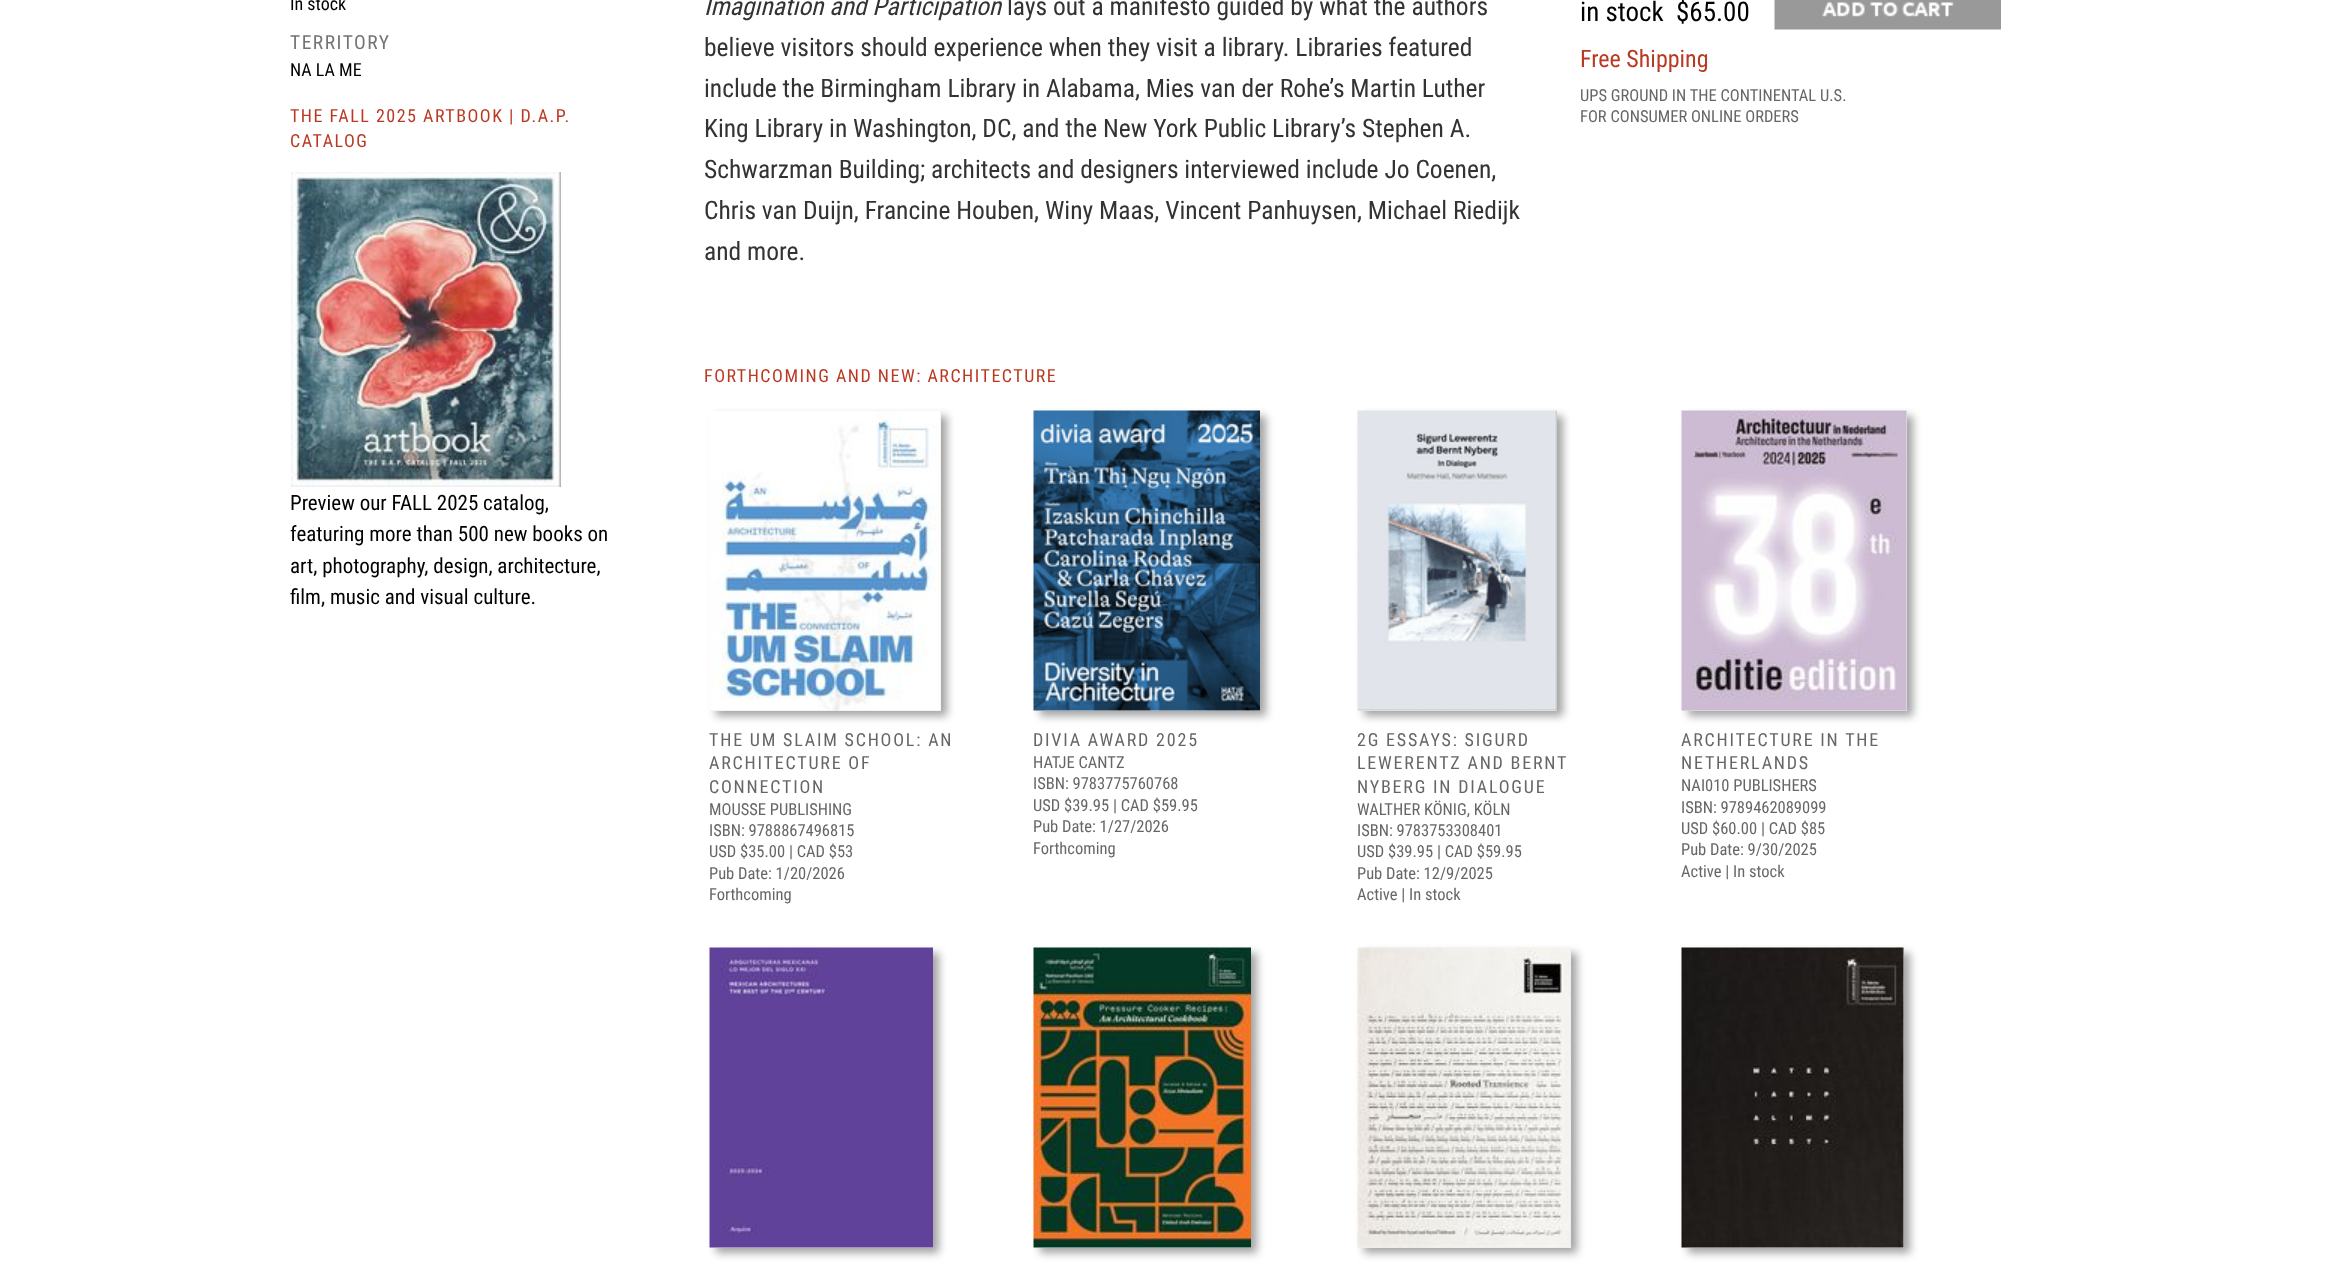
<svg xmlns="http://www.w3.org/2000/svg" width="2344" height="1277" viewBox="0 0 2344 1277">
  <rect width="100%" height="100%" fill="rgb(255,255,255)"/>
  <text x="290" y="10" font-family="Roboto Condensed" font-size="18" fill="rgb(0,0,0)">In stock</text>
  <text x="290" y="49" font-family="Roboto Condensed" font-size="19.5" letter-spacing="1.5" fill="rgb(116,116,116)">TERRITORY</text>
  <text x="290" y="76" font-family="Roboto Condensed" font-size="18" fill="rgb(0,0,0)">NA LA ME</text>
  <g font-family="Roboto Condensed" font-size="18" letter-spacing="1.5" fill="rgb(186,57,34)">
    <text>
      <tspan x="290" y="122">THE FALL 2025 ARTBOOK | D.A.P.</tspan>
      <tspan x="290" y="147">CATALOG</tspan>
    </text>
  </g>
  <image x="291" y="172" width="270" height="315" href="pic1.png"/>
  <g font-family="Roboto Condensed" font-size="21" fill="rgb(0,0,0)">
    <text>
      <tspan x="290" y="510">Preview our FALL 2025 catalog,</tspan>
      <tspan x="290" y="541">featuring more than 500 new books on</tspan>
      <tspan x="290" y="573">art, photography, design, architecture,</tspan>
      <tspan x="290" y="604">film, music and visual culture.</tspan>
    </text>
  </g>
  <text x="704" y="15" font-family="Roboto Condensed" font-size="25.5" font-style="italic" fill="rgb(51,51,51)">Imagination and Participation</text>
  <g font-family="Roboto Condensed" font-size="25.5" fill="rgb(51,51,51)">
    <text x="1007" y="15">lays out a manifesto guided by what the authors</text>
    <text>
      <tspan x="704" y="56">believe visitors should experience when they visit a library. Libraries featured</tspan>
      <tspan x="704" y="97">include the Birmingham Library in Alabama, Mies van der Rohe’s Martin Luther</tspan>
      <tspan x="704" y="137">King Library in Washington, DC, and the New York Public Library’s Stephen A.</tspan>
      <tspan x="704" y="178">Schwarzman Building; architects and designers interviewed include Jo Coenen,</tspan>
      <tspan x="704" y="219">Chris van Duijn, Francine Houben, Winy Maas, Vincent Panhuysen, Michael Riedijk</tspan>
      <tspan x="704" y="260">and more.</tspan>
    </text>
  </g>
  <g font-family="Roboto Condensed" font-size="27" fill="rgb(0,0,0)">
    <text x="1580" y="21">in stock</text>
    <text x="1676" y="21">$65.00</text>
  </g>
  <image x="1774" y="0" width="227" height="30" href="pic2.png"/>
  <text x="1580" y="67" font-family="Roboto Condensed" font-size="24" fill="rgb(186,57,34)">Free Shipping</text>
  <g font-family="Roboto Condensed" font-size="16.5" fill="rgb(102,102,102)">
    <text>
      <tspan x="1580" y="101">UPS GROUND IN THE CONTINENTAL U.S.</tspan>
      <tspan x="1580" y="122">FOR CONSUMER ONLINE ORDERS</tspan>
    </text>
  </g>
  <text x="704" y="382" font-family="Roboto Condensed" font-size="18" letter-spacing="1.5" fill="rgb(186,57,34)">FORTHCOMING AND NEW: ARCHITECTURE</text>
  <rect x="716" y="416" width="231" height="300" fill="rgb(163,163,163)" filter="blur(4px)"/>
  <rect x="710" y="411" width="231" height="300" fill="rgb(235,235,235)"/>
  <image x="709" y="411" width="232" height="300" href="pic3.png"/>
  <g font-family="Roboto Condensed" font-size="18" letter-spacing="1.8" fill="rgb(102,102,102)">
    <text>
      <tspan x="709" y="746">THE UM SLAIM SCHOOL: AN</tspan>
      <tspan x="709" y="769">ARCHITECTURE OF</tspan>
      <tspan x="709" y="793">CONNECTION</tspan>
    </text>
  </g>
  <g font-family="Roboto Condensed" font-size="16.5" fill="rgb(102,102,102)">
    <text>
      <tspan x="709" y="815">MOUSSE PUBLISHING</tspan>
      <tspan x="709" y="836">ISBN: 9788867496815</tspan>
      <tspan x="709" y="857">USD $35.00 | CAD $53</tspan>
      <tspan x="709" y="879">Pub Date: 1/20/2026</tspan>
      <tspan x="709" y="900">Forthcoming</tspan>
    </text>
  </g>
  <rect x="1040" y="416" width="226" height="300" fill="rgb(163,163,163)" filter="blur(4px)"/>
  <rect x="1034" y="710" width="226" height="1" fill="rgb(235,235,235)"/>
  <image x="1033" y="410" width="227" height="301" href="pic4.png"/>
  <text x="1033" y="746" font-family="Roboto Condensed" font-size="18" letter-spacing="1.8" fill="rgb(102,102,102)">DIVIA AWARD 2025</text>
  <g font-family="Roboto Condensed" font-size="16.5" fill="rgb(102,102,102)">
    <text>
      <tspan x="1033" y="768">HATJE CANTZ</tspan>
      <tspan x="1033" y="789">ISBN: 9783775760768</tspan>
      <tspan x="1033" y="811">USD $39.95 | CAD $59.95</tspan>
      <tspan x="1033" y="832">Pub Date: 1/27/2026</tspan>
      <tspan x="1033" y="854">Forthcoming</tspan>
    </text>
  </g>
  <rect x="1364" y="416" width="199" height="300" fill="rgb(163,163,163)" filter="blur(4px)"/>
  <rect x="1358" y="710" width="199" height="1" fill="rgb(235,235,235)"/>
  <image x="1357" y="410" width="200" height="301" href="pic5.png"/>
  <g font-family="Roboto Condensed" font-size="18" letter-spacing="1.8" fill="rgb(102,102,102)">
    <text>
      <tspan x="1357" y="746">2G ESSAYS: SIGURD</tspan>
      <tspan x="1357" y="769">LEWERENTZ AND BERNT</tspan>
      <tspan x="1357" y="793">NYBERG IN DIALOGUE</tspan>
    </text>
  </g>
  <g font-family="Roboto Condensed" font-size="16.5" fill="rgb(102,102,102)">
    <text>
      <tspan x="1357" y="815">WALTHER KÖNIG, KÖLN</tspan>
      <tspan x="1357" y="836">ISBN: 9783753308401</tspan>
      <tspan x="1357" y="857">USD $39.95 | CAD $59.95</tspan>
      <tspan x="1357" y="879">Pub Date: 12/9/2025</tspan>
      <tspan x="1357" y="900">Active | In stock</tspan>
    </text>
  </g>
  <rect x="1688" y="416" width="225" height="300" fill="rgb(163,163,163)" filter="blur(4px)"/>
  <rect x="1682" y="411" width="225" height="300" fill="rgb(235,235,235)"/>
  <image x="1681" y="410" width="226" height="301" href="pic6.png"/>
  <g font-family="Roboto Condensed" font-size="18" letter-spacing="1.8" fill="rgb(102,102,102)">
    <text>
      <tspan x="1681" y="746">ARCHITECTURE IN THE</tspan>
      <tspan x="1681" y="769">NETHERLANDS</tspan>
    </text>
  </g>
  <g font-family="Roboto Condensed" font-size="16.5" fill="rgb(102,102,102)">
    <text>
      <tspan x="1681" y="791">NAI010 PUBLISHERS</tspan>
      <tspan x="1681" y="813">ISBN: 9789462089099</tspan>
      <tspan x="1681" y="834">USD $60.00 | CAD $85</tspan>
      <tspan x="1681" y="855">Pub Date: 9/30/2025</tspan>
      <tspan x="1681" y="877">Active | In stock</tspan>
    </text>
  </g>
  <rect x="716" y="953" width="223" height="300" fill="rgb(163,163,163)" filter="blur(4px)"/>
  <rect x="710" y="1247" width="223" height="1" fill="rgb(235,235,235)"/>
  <image x="709" y="947" width="224" height="301" href="pic7.png"/>
  <rect x="1040" y="953" width="217" height="300" fill="rgb(163,163,163)" filter="blur(4px)"/>
  <rect x="1034" y="1247" width="217" height="1" fill="rgb(235,235,235)"/>
  <image x="1033" y="947" width="218" height="301" href="pic8.png"/>
  <rect x="1364" y="953" width="213" height="300" fill="rgb(163,163,163)" filter="blur(4px)"/>
  <rect x="1358" y="948" width="213" height="300" fill="rgb(235,235,235)"/>
  <image x="1357" y="947" width="214" height="301" href="pic9.png"/>
  <rect x="1688" y="953" width="222" height="300" fill="rgb(163,163,163)" filter="blur(4px)"/>
  <rect x="1682" y="948" width="222" height="300" fill="rgb(235,235,235)"/>
  <image x="1681" y="947" width="223" height="301" href="pic10.png"/>
</svg>
